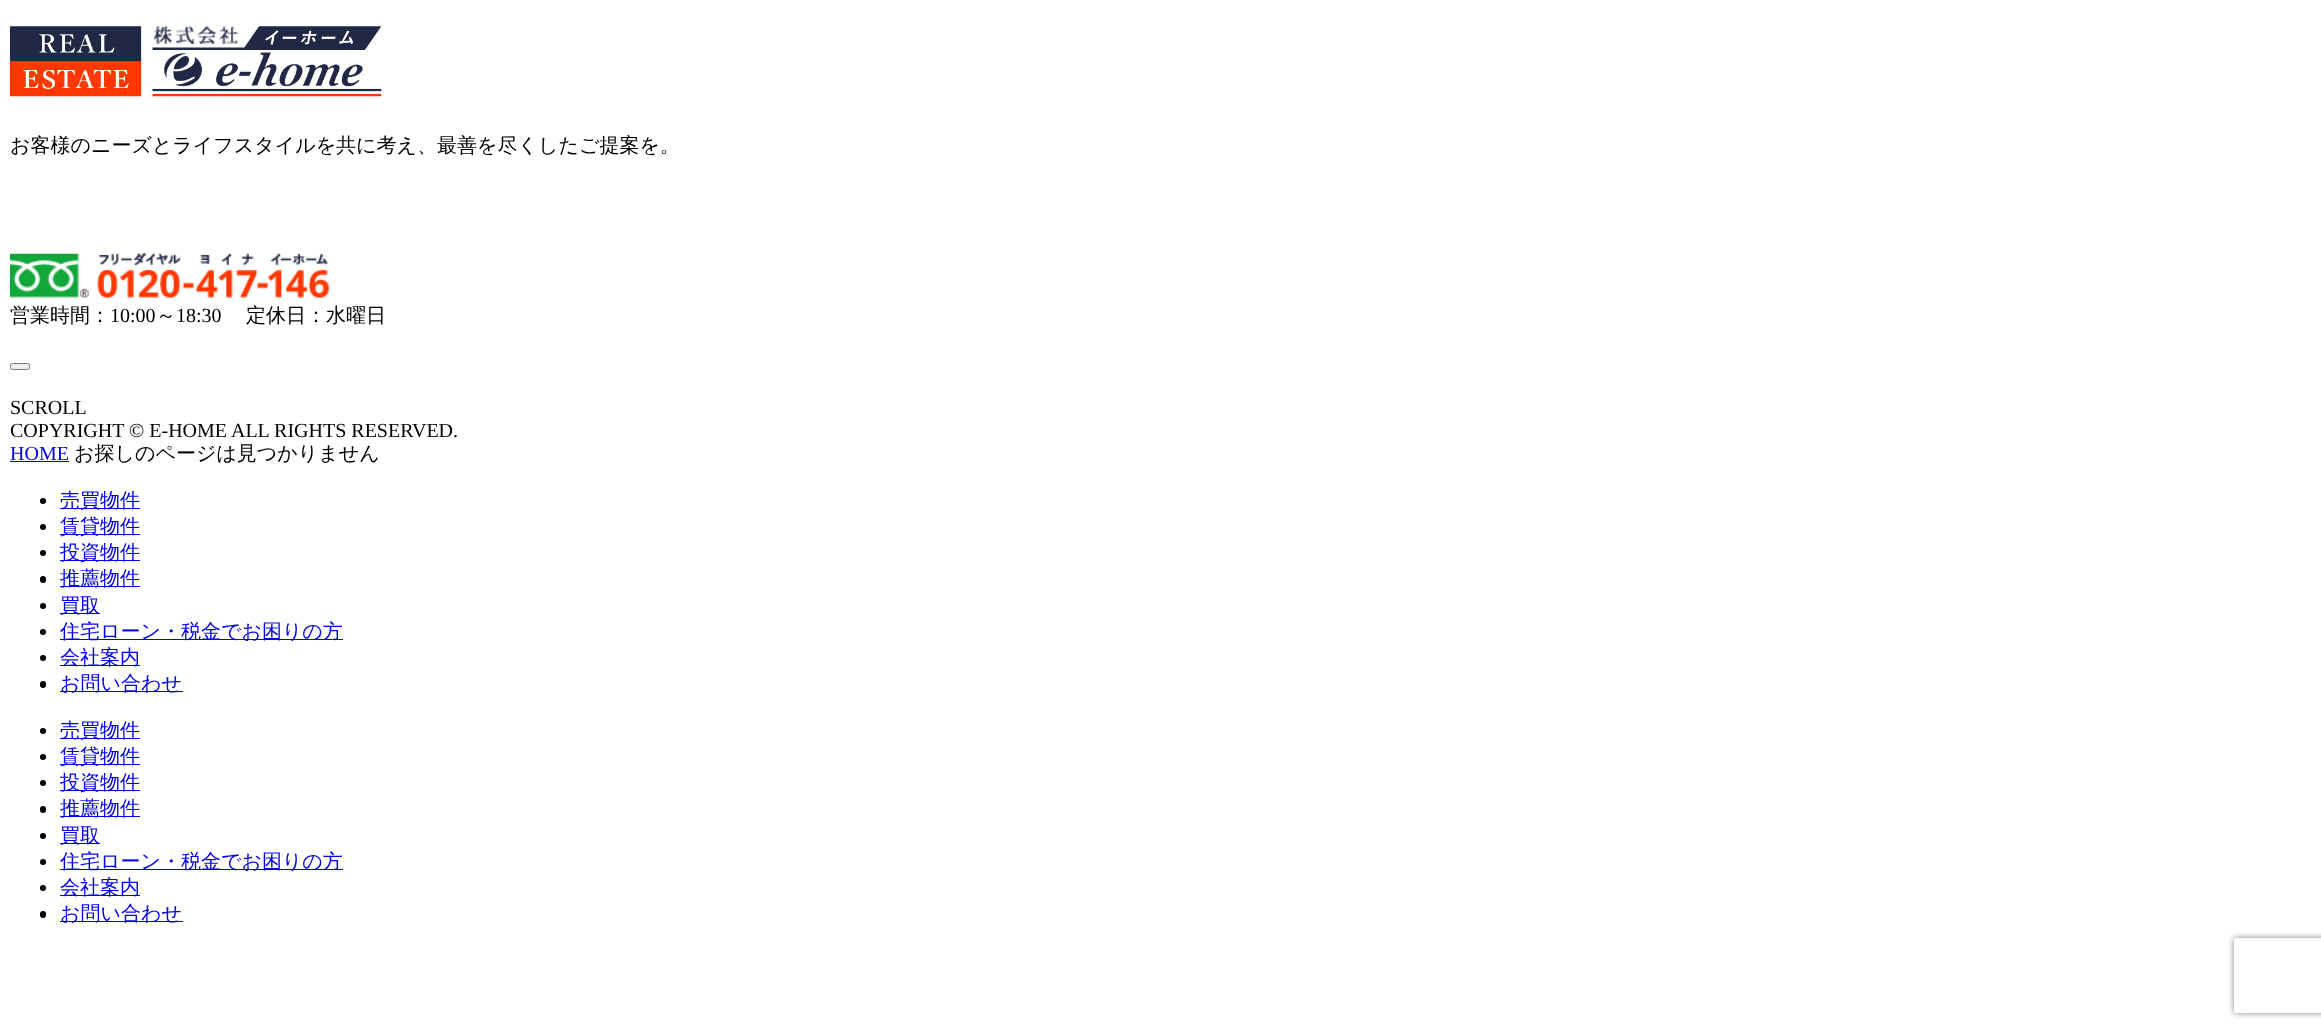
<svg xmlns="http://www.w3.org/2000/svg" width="2321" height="1030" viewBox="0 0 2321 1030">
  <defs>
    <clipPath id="clip1"><path d="M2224 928H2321V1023H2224ZM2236.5 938H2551.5C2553 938 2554 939 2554 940.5V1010.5C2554 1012 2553 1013 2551.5 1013H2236.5C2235 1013 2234 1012 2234 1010.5V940.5C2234 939 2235 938 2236.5 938Z" clip-rule="evenodd"/></clipPath>
  </defs>
  <rect width="100%" height="100%" fill="rgb(255,255,255)"/>
  <image x="10" y="26" width="372" height="71" href="pic1.png"/>
  <text x="10" y="152" font-family="WenQuanYi Zen Hei" font-size="20" font-weight="500" fill="rgb(0,0,0)">お客様のニーズとライフスタイルを共に考え、最善を尽くしたご提案を。</text>
  <image x="10" y="252" width="319" height="46" href="pic2.png"/>
  <text x="10" y="322" font-family="WenQuanYi Zen Hei" font-size="20" font-weight="500" fill="rgb(0,0,0)">営業時間：</text>
  <text x="110" y="322" font-family="Liberation Serif" font-size="20" fill="rgb(0,0,0)">10:00</text>
  <text x="156" y="322" font-family="WenQuanYi Zen Hei" font-size="20" font-weight="500" fill="rgb(0,0,0)">～</text>
  <text x="176" y="322" font-family="Liberation Serif" font-size="20" fill="rgb(0,0,0)">18:30</text>
  <text x="246" y="322" font-family="WenQuanYi Zen Hei" font-size="20" font-weight="500" fill="rgb(0,0,0)">定休日：水曜日</text>
  <rect x="10.5" y="363.5" width="19" height="6" rx="2" fill="rgb(239,239,239)" stroke="rgb(118,118,118)"/>
  <g font-family="Liberation Serif" font-size="20" fill="rgb(0,0,0)">
    <text>
      <tspan x="10" y="414">SCROLL</tspan>
      <tspan x="10" y="437">COPYRIGHT © E-HOME ALL RIGHTS RESERVED.</tspan>
    </text>
  </g>
  <text x="10" y="460" font-family="Liberation Serif" font-size="20" fill="rgb(0,0,238)">HOME</text>
  <rect x="10" y="461" width="59" height="1" fill="rgb(0,0,238)"/>
  <text x="74" y="460" font-family="WenQuanYi Zen Hei" font-size="20" font-weight="500" fill="rgb(0,0,0)">お探しのページは見つかりません</text>
  <circle cx="43" cy="501" r="3" fill="rgb(0,0,0)"/>
  <rect x="60" y="508" width="80" height="1" fill="rgb(0,0,238)"/>
  <text x="60" y="507" font-family="WenQuanYi Zen Hei" font-size="20" font-weight="500" fill="rgb(0,0,238)">売買物件</text>
  <circle cx="43" cy="527" r="3" fill="rgb(0,0,0)"/>
  <rect x="60" y="534" width="80" height="1" fill="rgb(0,0,238)"/>
  <text x="60" y="533" font-family="WenQuanYi Zen Hei" font-size="20" font-weight="500" fill="rgb(0,0,238)">賃貸物件</text>
  <circle cx="43" cy="553" r="3" fill="rgb(0,0,0)"/>
  <rect x="60" y="560" width="80" height="1" fill="rgb(0,0,238)"/>
  <text x="60" y="559" font-family="WenQuanYi Zen Hei" font-size="20" font-weight="500" fill="rgb(0,0,238)">投資物件</text>
  <rect x="40" y="576" width="6" height="7" rx="3" fill="rgb(0,0,0)"/>
  <rect x="60" y="586" width="80" height="1" fill="rgb(0,0,238)"/>
  <text x="60" y="585" font-family="WenQuanYi Zen Hei" font-size="20" font-weight="500" fill="rgb(0,0,238)">推薦物件</text>
  <circle cx="43" cy="606" r="3" fill="rgb(0,0,0)"/>
  <rect x="60" y="613" width="40" height="1" fill="rgb(0,0,238)"/>
  <text x="60" y="612" font-family="WenQuanYi Zen Hei" font-size="20" font-weight="500" fill="rgb(0,0,238)">買取</text>
  <circle cx="43" cy="632" r="3" fill="rgb(0,0,0)"/>
  <rect x="60" y="639" width="283" height="1" fill="rgb(0,0,238)"/>
  <text x="60" y="638" font-family="WenQuanYi Zen Hei" font-size="20" font-weight="500" fill="rgb(0,0,238)">住宅ローン・税金でお困りの方</text>
  <circle cx="43" cy="658" r="3" fill="rgb(0,0,0)"/>
  <rect x="60" y="665" width="80" height="1" fill="rgb(0,0,238)"/>
  <text x="60" y="664" font-family="WenQuanYi Zen Hei" font-size="20" font-weight="500" fill="rgb(0,0,238)">会社案内</text>
  <rect x="40" y="681" width="6" height="7" rx="3" fill="rgb(0,0,0)"/>
  <rect x="60" y="691" width="123" height="1" fill="rgb(0,0,238)"/>
  <text x="60" y="690" font-family="WenQuanYi Zen Hei" font-size="20" font-weight="500" fill="rgb(0,0,238)">お問い合わせ</text>
  <circle cx="43" cy="731" r="3" fill="rgb(0,0,0)"/>
  <rect x="60" y="738" width="80" height="1" fill="rgb(0,0,238)"/>
  <text x="60" y="737" font-family="WenQuanYi Zen Hei" font-size="20" font-weight="500" fill="rgb(0,0,238)">売買物件</text>
  <circle cx="43" cy="757" r="3" fill="rgb(0,0,0)"/>
  <rect x="60" y="764" width="80" height="1" fill="rgb(0,0,238)"/>
  <text x="60" y="763" font-family="WenQuanYi Zen Hei" font-size="20" font-weight="500" fill="rgb(0,0,238)">賃貸物件</text>
  <circle cx="43" cy="783" r="3" fill="rgb(0,0,0)"/>
  <rect x="60" y="790" width="80" height="1" fill="rgb(0,0,238)"/>
  <text x="60" y="789" font-family="WenQuanYi Zen Hei" font-size="20" font-weight="500" fill="rgb(0,0,238)">投資物件</text>
  <rect x="40" y="806" width="6" height="7" rx="3" fill="rgb(0,0,0)"/>
  <rect x="60" y="816" width="80" height="1" fill="rgb(0,0,238)"/>
  <text x="60" y="815" font-family="WenQuanYi Zen Hei" font-size="20" font-weight="500" fill="rgb(0,0,238)">推薦物件</text>
  <circle cx="43" cy="836" r="3" fill="rgb(0,0,0)"/>
  <rect x="60" y="843" width="40" height="1" fill="rgb(0,0,238)"/>
  <text x="60" y="842" font-family="WenQuanYi Zen Hei" font-size="20" font-weight="500" fill="rgb(0,0,238)">買取</text>
  <circle cx="43" cy="862" r="3" fill="rgb(0,0,0)"/>
  <rect x="60" y="869" width="283" height="1" fill="rgb(0,0,238)"/>
  <text x="60" y="868" font-family="WenQuanYi Zen Hei" font-size="20" font-weight="500" fill="rgb(0,0,238)">住宅ローン・税金でお困りの方</text>
  <circle cx="43" cy="888" r="3" fill="rgb(0,0,0)"/>
  <rect x="60" y="895" width="80" height="1" fill="rgb(0,0,238)"/>
  <text x="60" y="894" font-family="WenQuanYi Zen Hei" font-size="20" font-weight="500" fill="rgb(0,0,238)">会社案内</text>
  <rect x="40" y="911" width="6" height="7" rx="3" fill="rgb(0,0,0)"/>
  <rect x="60" y="921" width="123" height="1" fill="rgb(0,0,238)"/>
  <text x="60" y="920" font-family="WenQuanYi Zen Hei" font-size="20" font-weight="500" fill="rgb(0,0,238)">お問い合わせ</text>
  <g clip-path="url(#clip1)">
    <rect x="2234" y="938" width="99" height="75" rx="2.5" fill="rgb(128,128,128)" filter="blur(3px)"/>
  </g>
</svg>
